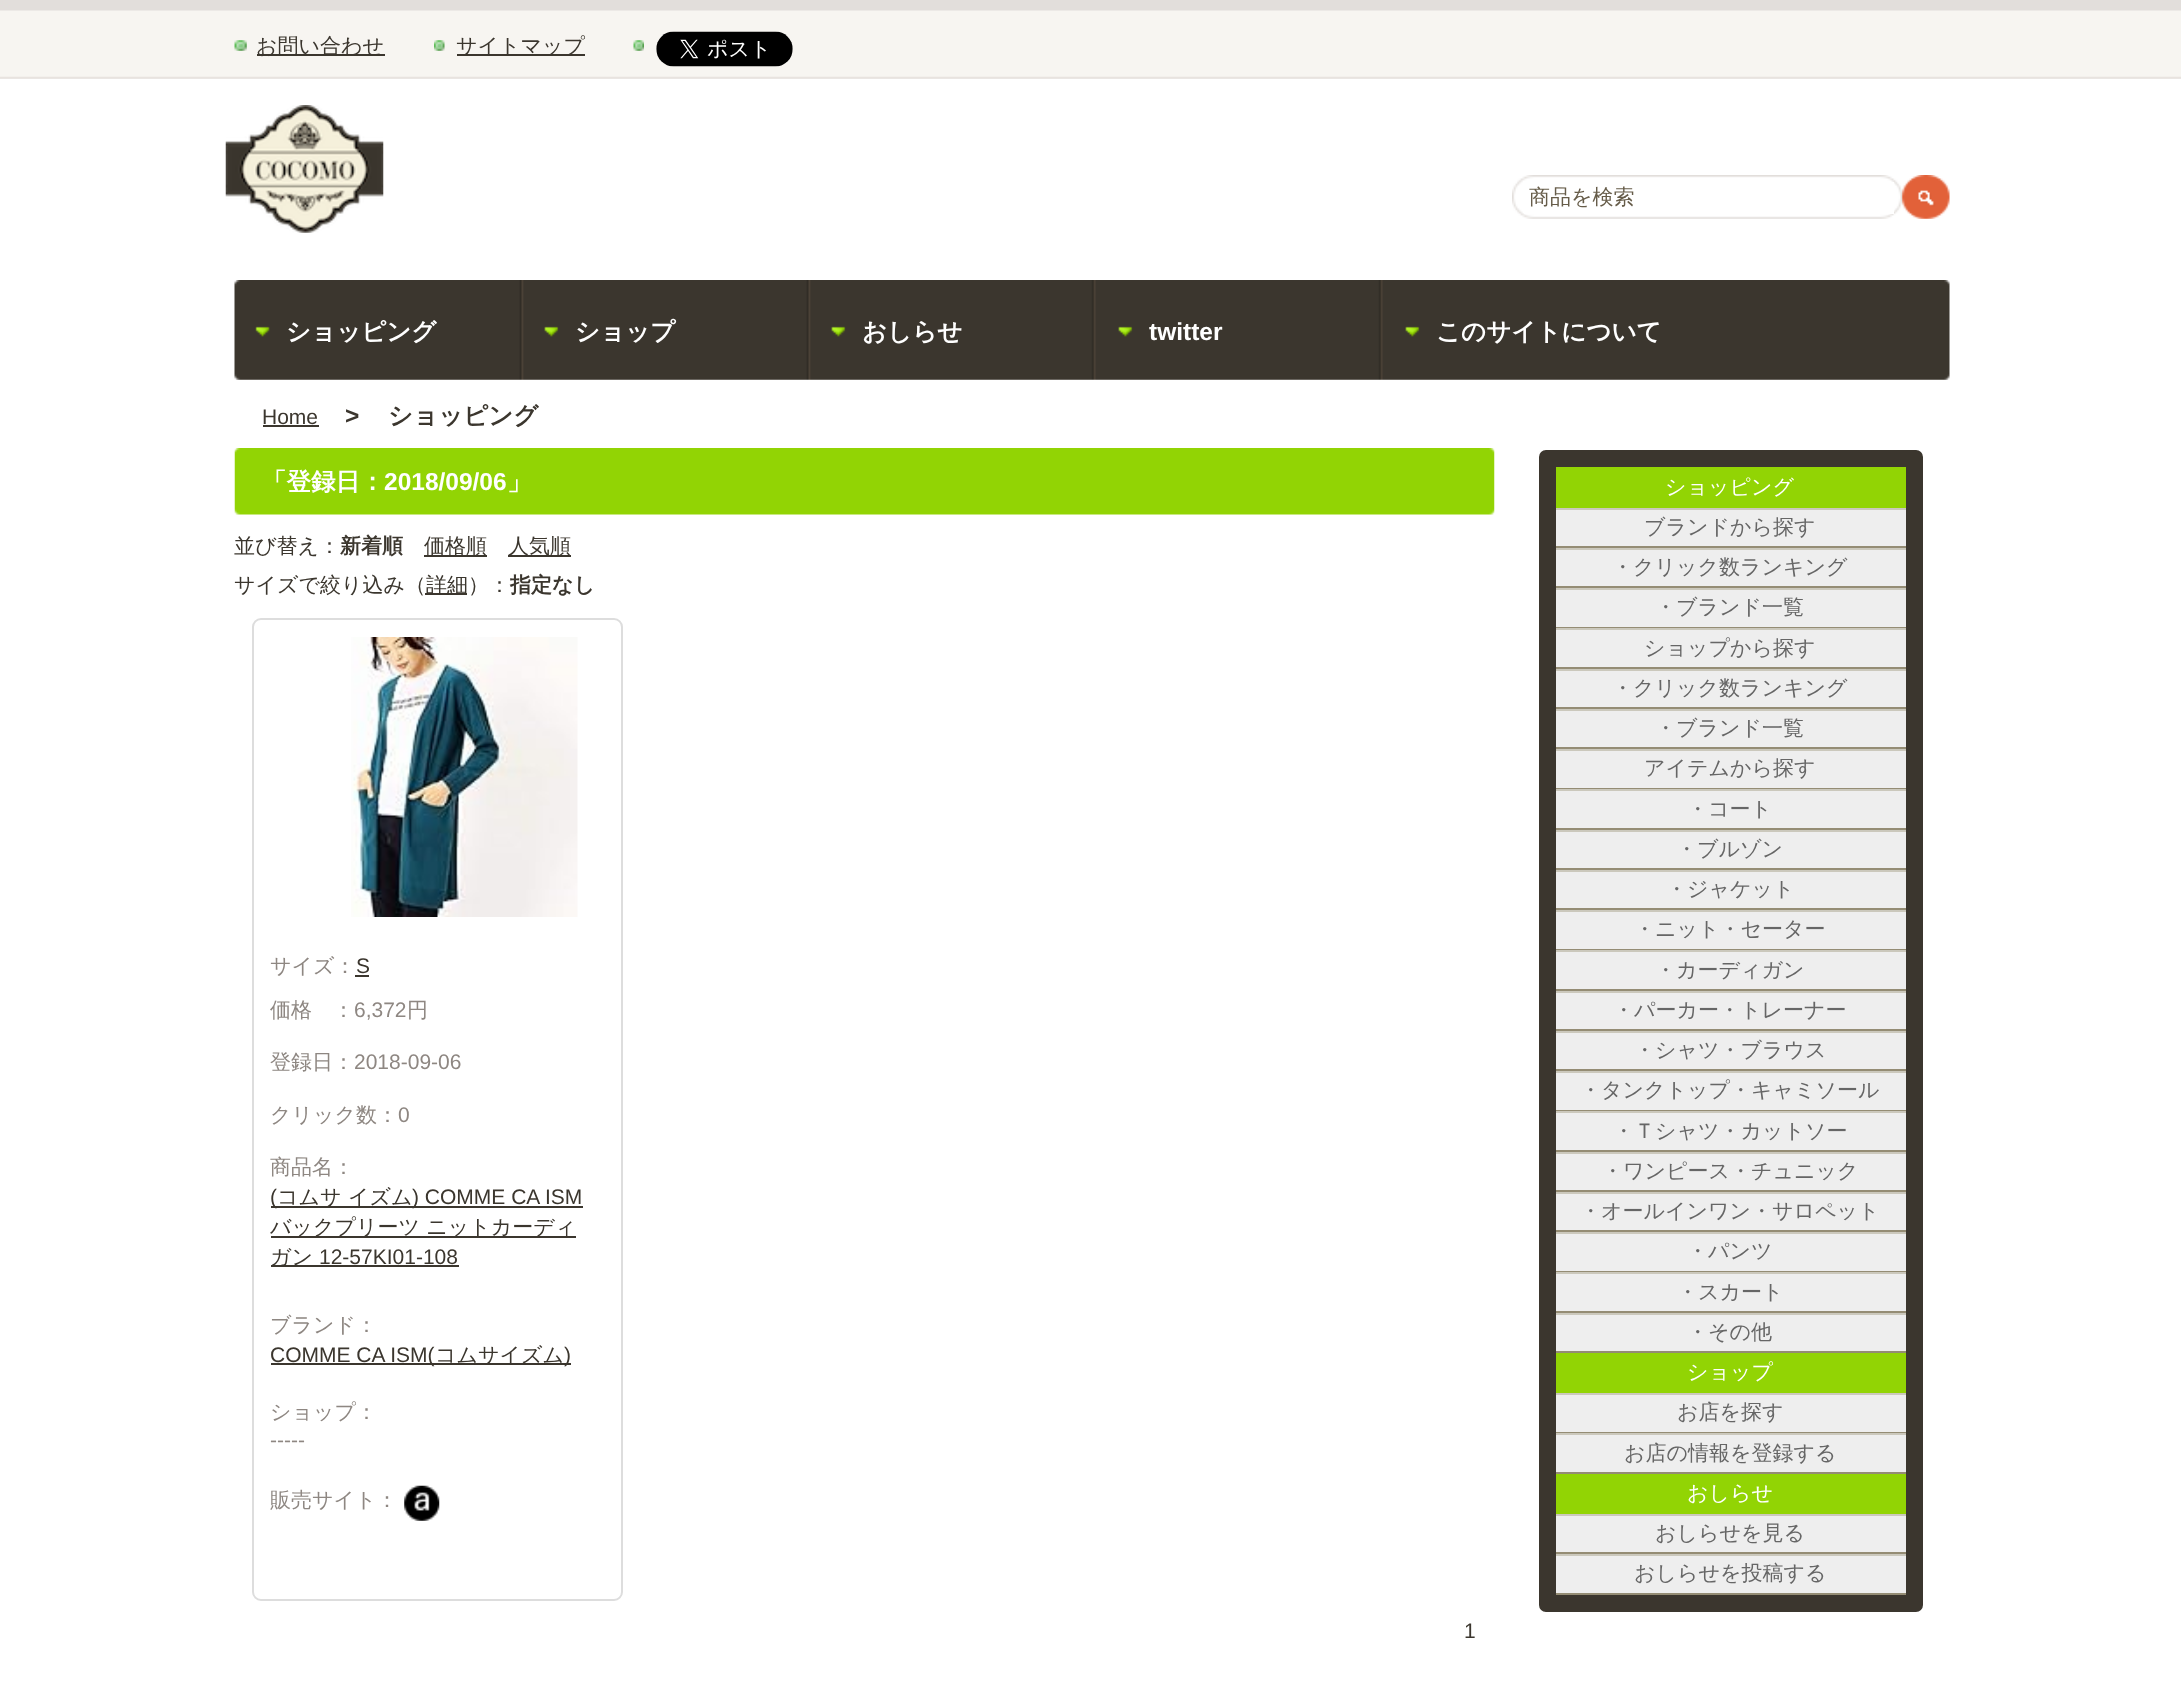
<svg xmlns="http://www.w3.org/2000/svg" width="2181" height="1683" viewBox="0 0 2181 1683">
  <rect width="100%" height="100%" fill="rgb(255,255,255)"/>
  <image x="0" y="0" width="2181" height="79" href="pic1.png"/>
  <image x="234" y="40" width="13" height="11" href="pic2.png"/>
  <rect x="257" y="54" width="128" height="2" fill="rgb(59,54,46)"/>
  <text x="256" y="53" font-family="WenQuanYi Zen Hei" font-size="21" font-weight="500" fill="rgb(59,54,46)">お問い合わせ</text>
  <image x="434" y="40" width="11" height="11" href="pic3.png"/>
  <rect x="457" y="54" width="128" height="2" fill="rgb(59,54,46)"/>
  <text x="456" y="53" font-family="WenQuanYi Zen Hei" font-size="21" font-weight="500" fill="rgb(59,54,46)">サイトマップ</text>
  <image x="633" y="40" width="11" height="11" href="pic4.png"/>
  <image x="656" y="31" width="137" height="36" href="pic5.png"/>
  <image x="1512" y="175" width="391" height="44" href="pic6.png"/>
  <rect x="1524" y="182" width="370" height="32" fill="rgb(255,255,255)"/>
  <text x="1529" y="204" font-family="WenQuanYi Zen Hei" font-size="21" font-weight="500" fill="rgb(102,92,73)">商品を検索</text>
  <image x="1902" y="175" width="48" height="44" href="pic7.png"/>
  <image x="234" y="280" width="1716" height="100" href="pic8.png"/>
  <image x="255" y="326" width="15" height="11" href="pic9.png"/>
  <text x="286" y="340" font-family="WenQuanYi Zen Hei" font-size="24.5" font-weight="bold" fill="rgb(255,255,255)">ショッピング</text>
  <image x="544" y="326" width="15" height="11" href="pic10.png"/>
  <text x="575" y="340" font-family="WenQuanYi Zen Hei" font-size="24.5" font-weight="bold" fill="rgb(255,255,255)">ショップ</text>
  <image x="831" y="326" width="15" height="11" href="pic10.png"/>
  <text x="862" y="340" font-family="WenQuanYi Zen Hei" font-size="24.5" font-weight="bold" fill="rgb(255,255,255)">おしらせ</text>
  <image x="1118" y="326" width="15" height="11" href="pic11.png"/>
  <text x="1149" y="340" font-family="Liberation Sans" font-size="24.5" font-weight="bold" fill="rgb(255,255,255)">twitter</text>
  <image x="1405" y="326" width="15" height="11" href="pic11.png"/>
  <text x="1436" y="340" font-family="WenQuanYi Zen Hei" font-size="24.5" font-weight="bold" fill="rgb(255,255,255)">このサイトについて</text>
  <image x="225" y="105" width="159" height="128" href="pic12.png"/>
  <text x="262" y="424" font-family="Liberation Sans" font-size="21" fill="rgb(59,54,46)">Home</text>
  <rect x="263" y="425" width="56" height="2" fill="rgb(59,54,46)"/>
  <text x="345" y="424" font-family="Liberation Sans" font-size="24.5" font-weight="bold" fill="rgb(59,54,46)">&gt;</text>
  <text x="388" y="424" font-family="WenQuanYi Zen Hei" font-size="24.5" font-weight="bold" fill="rgb(59,54,46)">ショッピング</text>
  <image x="234" y="448" width="1261" height="67" href="pic13.png"/>
  <text x="262" y="490" font-family="WenQuanYi Zen Hei" font-size="24.5" font-weight="bold" fill="rgb(255,255,255)">「登録日：</text>
  <text x="384" y="490" font-family="Liberation Sans" font-size="24.5" font-weight="bold" fill="rgb(255,255,255)">2018/09/06</text>
  <text x="507" y="490" font-family="WenQuanYi Zen Hei" font-size="24.5" font-weight="bold" fill="rgb(255,255,255)">」</text>
  <text x="234" y="553" font-family="WenQuanYi Zen Hei" font-size="21" font-weight="500" fill="rgb(59,54,46)">並び替え：</text>
  <text x="340" y="553" font-family="WenQuanYi Zen Hei" font-size="21" font-weight="bold" fill="rgb(59,54,46)">新着順</text>
  <rect x="424" y="555" width="63" height="2" fill="rgb(59,54,46)"/>
  <text x="424" y="553" font-family="WenQuanYi Zen Hei" font-size="21" font-weight="500" fill="rgb(59,54,46)">価格順</text>
  <rect x="508" y="555" width="63" height="2" fill="rgb(59,54,46)"/>
  <g font-family="WenQuanYi Zen Hei" font-size="21" font-weight="500" fill="rgb(59,54,46)">
    <text x="508" y="553">人気順</text>
    <text x="234" y="592">サイズで絞り込み（</text>
  </g>
  <rect x="425" y="593" width="42" height="2" fill="rgb(59,54,46)"/>
  <text x="426" y="592" font-family="WenQuanYi Zen Hei" font-size="21" font-weight="500" fill="rgb(59,54,46)">詳細）：</text>
  <text x="510" y="592" font-family="WenQuanYi Zen Hei" font-size="21" font-weight="bold" fill="rgb(59,54,46)">指定なし</text>
  <rect x="253" y="619" width="369" height="981" rx="8" fill="none" stroke="rgb(221,221,221)" stroke-width="2"/>
  <image x="351" y="637" width="227" height="280" href="pic14.png"/>
  <text x="270" y="973" font-family="WenQuanYi Zen Hei" font-size="21" font-weight="500" fill="rgb(142,135,130)">サイズ：</text>
  <text x="356" y="973" font-family="Liberation Sans" font-size="21" fill="rgb(59,54,46)">S</text>
  <rect x="355" y="975" width="14" height="2" fill="rgb(59,54,46)"/>
  <text x="270" y="1017" font-family="WenQuanYi Zen Hei" font-size="21" font-weight="500" fill="rgb(142,135,130)">価格　：</text>
  <text x="354" y="1017" font-family="Liberation Sans" font-size="21" fill="rgb(142,135,130)">6,372</text>
  <g font-family="WenQuanYi Zen Hei" font-size="21" font-weight="500" fill="rgb(142,135,130)">
    <text x="407" y="1017">円</text>
    <text x="270" y="1069">登録日：</text>
  </g>
  <text x="354" y="1069" font-family="Liberation Sans" font-size="21" fill="rgb(142,135,130)">2018-09-06</text>
  <text x="270" y="1122" font-family="WenQuanYi Zen Hei" font-size="21" font-weight="500" fill="rgb(142,135,130)">クリック数：</text>
  <text x="398" y="1122" font-family="Liberation Sans" font-size="21" fill="rgb(142,135,130)">0</text>
  <text x="270" y="1174" font-family="WenQuanYi Zen Hei" font-size="21" font-weight="500" fill="rgb(142,135,130)">商品名：</text>
  <rect x="271" y="1206" width="312" height="2" fill="rgb(59,54,46)"/>
  <text x="270" y="1204" font-family="Liberation Sans" font-size="21" fill="rgb(59,54,46)">(</text>
  <g font-family="WenQuanYi Zen Hei" font-size="21" font-weight="500" fill="rgb(59,54,46)">
    <text x="277" y="1204">コムサ</text>
    <text x="348" y="1204">イズム</text>
  </g>
  <text x="412" y="1204" font-family="Liberation Sans" font-size="21" fill="rgb(59,54,46)">) COMME CA ISM</text>
  <rect x="271" y="1236" width="305" height="2" fill="rgb(59,54,46)"/>
  <text x="270" y="1234" font-family="WenQuanYi Zen Hei" font-size="21" font-weight="500" fill="rgb(59,54,46)">バックプリーツ ニットカーディ</text>
  <rect x="271" y="1265" width="188" height="2" fill="rgb(59,54,46)"/>
  <text x="270" y="1264" font-family="WenQuanYi Zen Hei" font-size="21" font-weight="500" fill="rgb(59,54,46)">ガン</text>
  <text x="319" y="1264" font-family="Liberation Sans" font-size="21" fill="rgb(59,54,46)">12-57KI01-108</text>
  <text x="270" y="1332" font-family="WenQuanYi Zen Hei" font-size="21" font-weight="500" fill="rgb(142,135,130)">ブランド：</text>
  <rect x="271" y="1363" width="300" height="2" fill="rgb(59,54,46)"/>
  <text x="270" y="1362" font-family="Liberation Sans" font-size="21" fill="rgb(59,54,46)">COMME CA ISM(</text>
  <text x="435" y="1362" font-family="WenQuanYi Zen Hei" font-size="21" font-weight="500" fill="rgb(59,54,46)">コムサイズム</text>
  <text x="564" y="1362" font-family="Liberation Sans" font-size="21" fill="rgb(59,54,46)">)</text>
  <text x="270" y="1419" font-family="WenQuanYi Zen Hei" font-size="21" font-weight="500" fill="rgb(142,135,130)">ショップ：</text>
  <text x="270" y="1447" font-family="Liberation Sans" font-size="21" fill="rgb(142,135,130)">-----</text>
  <text x="270" y="1507" font-family="WenQuanYi Zen Hei" font-size="21" font-weight="500" fill="rgb(142,135,130)">販売サイト：</text>
  <image x="404" y="1485" width="36" height="36" href="pic15.png"/>
  <text x="1464" y="1638" font-family="Liberation Sans" font-size="21" fill="rgb(59,54,46)">1</text>
  <rect x="1538" y="449" width="386" height="1164" rx="8" fill="rgb(59,54,46)" stroke="rgb(255,255,255)" stroke-width="2"/>
  <rect x="1556" y="467" width="350" height="41" fill="rgb(146,212,4)"/>
  <text x="1665" y="494" font-family="WenQuanYi Zen Hei" font-size="21" font-weight="500" fill="rgb(255,255,255)">ショッピング</text>
  <rect x="1556" y="510" width="350" height="36" fill="rgb(238,238,238)"/>
  <rect x="1556" y="508" width="350" height="2" fill="rgb(203,200,188)"/>
  <rect x="1556" y="546" width="350" height="2" fill="rgb(148,140,116)"/>
  <text x="1644" y="534" font-family="WenQuanYi Zen Hei" font-size="21" font-weight="500" fill="rgb(102,102,102)">ブランドから探す</text>
  <rect x="1556" y="550" width="350" height="36" fill="rgb(238,238,238)"/>
  <rect x="1556" y="548" width="350" height="2" fill="rgb(203,200,188)"/>
  <rect x="1556" y="586" width="350" height="2" fill="rgb(148,140,116)"/>
  <text x="1612" y="574" font-family="WenQuanYi Zen Hei" font-size="21" font-weight="500" fill="rgb(102,102,102)">・クリック数ランキング</text>
  <rect x="1556" y="590" width="350" height="37" fill="rgb(238,238,238)"/>
  <rect x="1556" y="588" width="350" height="2" fill="rgb(203,200,188)"/>
  <rect x="1556" y="627" width="350" height="1" fill="rgb(148,140,116)"/>
  <text x="1655" y="614" font-family="WenQuanYi Zen Hei" font-size="21" font-weight="500" fill="rgb(102,102,102)">・ブランド一覧</text>
  <rect x="1556" y="630" width="350" height="37" fill="rgb(238,238,238)"/>
  <rect x="1556" y="628" width="350" height="2" fill="rgb(203,200,188)"/>
  <rect x="1556" y="667" width="350" height="2" fill="rgb(148,140,116)"/>
  <text x="1644" y="655" font-family="WenQuanYi Zen Hei" font-size="21" font-weight="500" fill="rgb(102,102,102)">ショップから探す</text>
  <rect x="1556" y="671" width="350" height="36" fill="rgb(238,238,238)"/>
  <rect x="1556" y="669" width="350" height="2" fill="rgb(203,200,188)"/>
  <rect x="1556" y="707" width="350" height="2" fill="rgb(148,140,116)"/>
  <text x="1612" y="695" font-family="WenQuanYi Zen Hei" font-size="21" font-weight="500" fill="rgb(102,102,102)">・クリック数ランキング</text>
  <rect x="1556" y="711" width="350" height="36" fill="rgb(238,238,238)"/>
  <rect x="1556" y="709" width="350" height="2" fill="rgb(203,200,188)"/>
  <rect x="1556" y="747" width="350" height="2" fill="rgb(148,140,116)"/>
  <text x="1655" y="735" font-family="WenQuanYi Zen Hei" font-size="21" font-weight="500" fill="rgb(102,102,102)">・ブランド一覧</text>
  <rect x="1556" y="751" width="350" height="37" fill="rgb(238,238,238)"/>
  <rect x="1556" y="749" width="350" height="2" fill="rgb(203,200,188)"/>
  <rect x="1556" y="788" width="350" height="1" fill="rgb(148,140,116)"/>
  <text x="1644" y="775" font-family="WenQuanYi Zen Hei" font-size="21" font-weight="500" fill="rgb(102,102,102)">アイテムから探す</text>
  <rect x="1556" y="791" width="350" height="37" fill="rgb(238,238,238)"/>
  <rect x="1556" y="789" width="350" height="2" fill="rgb(203,200,188)"/>
  <rect x="1556" y="828" width="350" height="2" fill="rgb(148,140,116)"/>
  <text x="1687" y="816" font-family="WenQuanYi Zen Hei" font-size="21" font-weight="500" fill="rgb(102,102,102)">・コート</text>
  <rect x="1556" y="832" width="350" height="36" fill="rgb(238,238,238)"/>
  <rect x="1556" y="830" width="350" height="2" fill="rgb(203,200,188)"/>
  <rect x="1556" y="868" width="350" height="2" fill="rgb(148,140,116)"/>
  <text x="1676" y="856" font-family="WenQuanYi Zen Hei" font-size="21" font-weight="500" fill="rgb(102,102,102)">・ブルゾン</text>
  <rect x="1556" y="872" width="350" height="36" fill="rgb(238,238,238)"/>
  <rect x="1556" y="870" width="350" height="2" fill="rgb(203,200,188)"/>
  <rect x="1556" y="908" width="350" height="2" fill="rgb(148,140,116)"/>
  <text x="1666" y="896" font-family="WenQuanYi Zen Hei" font-size="21" font-weight="500" fill="rgb(102,102,102)">・ジャケット</text>
  <rect x="1556" y="912" width="350" height="37" fill="rgb(238,238,238)"/>
  <rect x="1556" y="910" width="350" height="2" fill="rgb(203,200,188)"/>
  <rect x="1556" y="949" width="350" height="1" fill="rgb(148,140,116)"/>
  <text x="1634" y="936" font-family="WenQuanYi Zen Hei" font-size="21" font-weight="500" fill="rgb(102,102,102)">・ニット・セーター</text>
  <rect x="1556" y="952" width="350" height="37" fill="rgb(238,238,238)"/>
  <rect x="1556" y="950" width="350" height="2" fill="rgb(203,200,188)"/>
  <rect x="1556" y="989" width="350" height="2" fill="rgb(148,140,116)"/>
  <text x="1655" y="977" font-family="WenQuanYi Zen Hei" font-size="21" font-weight="500" fill="rgb(102,102,102)">・カーディガン</text>
  <rect x="1556" y="993" width="350" height="36" fill="rgb(238,238,238)"/>
  <rect x="1556" y="991" width="350" height="2" fill="rgb(203,200,188)"/>
  <rect x="1556" y="1029" width="350" height="2" fill="rgb(148,140,116)"/>
  <text x="1613" y="1017" font-family="WenQuanYi Zen Hei" font-size="21" font-weight="500" fill="rgb(102,102,102)">・パーカー・トレーナー</text>
  <rect x="1556" y="1033" width="350" height="36" fill="rgb(238,238,238)"/>
  <rect x="1556" y="1031" width="350" height="2" fill="rgb(203,200,188)"/>
  <rect x="1556" y="1069" width="350" height="2" fill="rgb(148,140,116)"/>
  <text x="1634" y="1057" font-family="WenQuanYi Zen Hei" font-size="21" font-weight="500" fill="rgb(102,102,102)">・シャツ・ブラウス</text>
  <rect x="1556" y="1073" width="350" height="37" fill="rgb(238,238,238)"/>
  <rect x="1556" y="1071" width="350" height="2" fill="rgb(203,200,188)"/>
  <rect x="1556" y="1110" width="350" height="1" fill="rgb(148,140,116)"/>
  <text x="1580" y="1097" font-family="WenQuanYi Zen Hei" font-size="21" font-weight="500" fill="rgb(102,102,102)">・タンクトップ・キャミソール</text>
  <rect x="1556" y="1113" width="350" height="37" fill="rgb(238,238,238)"/>
  <rect x="1556" y="1111" width="350" height="2" fill="rgb(203,200,188)"/>
  <rect x="1556" y="1150" width="350" height="2" fill="rgb(148,140,116)"/>
  <text x="1613" y="1138" font-family="WenQuanYi Zen Hei" font-size="21" font-weight="500" fill="rgb(102,102,102)">・Ｔシャツ・カットソー</text>
  <rect x="1556" y="1154" width="350" height="36" fill="rgb(238,238,238)"/>
  <rect x="1556" y="1152" width="350" height="2" fill="rgb(203,200,188)"/>
  <rect x="1556" y="1190" width="350" height="2" fill="rgb(148,140,116)"/>
  <text x="1602" y="1178" font-family="WenQuanYi Zen Hei" font-size="21" font-weight="500" fill="rgb(102,102,102)">・ワンピース・チュニック</text>
  <rect x="1556" y="1194" width="350" height="36" fill="rgb(238,238,238)"/>
  <rect x="1556" y="1192" width="350" height="2" fill="rgb(203,200,188)"/>
  <rect x="1556" y="1230" width="350" height="2" fill="rgb(148,140,116)"/>
  <text x="1580" y="1218" font-family="WenQuanYi Zen Hei" font-size="21" font-weight="500" fill="rgb(102,102,102)">・オールインワン・サロペット</text>
  <rect x="1556" y="1234" width="350" height="37" fill="rgb(238,238,238)"/>
  <rect x="1556" y="1232" width="350" height="2" fill="rgb(203,200,188)"/>
  <rect x="1556" y="1271" width="350" height="1" fill="rgb(148,140,116)"/>
  <text x="1687" y="1258" font-family="WenQuanYi Zen Hei" font-size="21" font-weight="500" fill="rgb(102,102,102)">・パンツ</text>
  <rect x="1556" y="1274" width="350" height="37" fill="rgb(238,238,238)"/>
  <rect x="1556" y="1272" width="350" height="2" fill="rgb(203,200,188)"/>
  <rect x="1556" y="1311" width="350" height="2" fill="rgb(148,140,116)"/>
  <text x="1677" y="1299" font-family="WenQuanYi Zen Hei" font-size="21" font-weight="500" fill="rgb(102,102,102)">・スカート</text>
  <rect x="1556" y="1315" width="350" height="36" fill="rgb(238,238,238)"/>
  <rect x="1556" y="1313" width="350" height="2" fill="rgb(203,200,188)"/>
  <rect x="1556" y="1351" width="350" height="2" fill="rgb(148,140,116)"/>
  <text x="1687" y="1339" font-family="WenQuanYi Zen Hei" font-size="21" font-weight="500" fill="rgb(102,102,102)">・その他</text>
  <rect x="1556" y="1353" width="350" height="40" fill="rgb(146,212,4)"/>
  <text x="1687" y="1379" font-family="WenQuanYi Zen Hei" font-size="21" font-weight="500" fill="rgb(255,255,255)">ショップ</text>
  <rect x="1556" y="1395" width="350" height="37" fill="rgb(238,238,238)"/>
  <rect x="1556" y="1393" width="350" height="2" fill="rgb(203,200,188)"/>
  <rect x="1556" y="1432" width="350" height="1" fill="rgb(148,140,116)"/>
  <text x="1677" y="1419" font-family="WenQuanYi Zen Hei" font-size="21" font-weight="500" fill="rgb(102,102,102)">お店を探す</text>
  <rect x="1556" y="1435" width="350" height="37" fill="rgb(238,238,238)"/>
  <rect x="1556" y="1433" width="350" height="2" fill="rgb(203,200,188)"/>
  <rect x="1556" y="1472" width="350" height="2" fill="rgb(148,140,116)"/>
  <text x="1624" y="1460" font-family="WenQuanYi Zen Hei" font-size="21" font-weight="500" fill="rgb(102,102,102)">お店の情報を登録する</text>
  <rect x="1556" y="1474" width="350" height="40" fill="rgb(146,212,4)"/>
  <text x="1687" y="1500" font-family="WenQuanYi Zen Hei" font-size="21" font-weight="500" fill="rgb(255,255,255)">おしらせ</text>
  <rect x="1556" y="1516" width="350" height="36" fill="rgb(238,238,238)"/>
  <rect x="1556" y="1514" width="350" height="2" fill="rgb(203,200,188)"/>
  <rect x="1556" y="1552" width="350" height="2" fill="rgb(148,140,116)"/>
  <text x="1655" y="1540" font-family="WenQuanYi Zen Hei" font-size="21" font-weight="500" fill="rgb(102,102,102)">おしらせを見る</text>
  <rect x="1556" y="1556" width="350" height="37" fill="rgb(238,238,238)"/>
  <rect x="1556" y="1554" width="350" height="2" fill="rgb(203,200,188)"/>
  <rect x="1556" y="1593" width="350" height="2" fill="rgb(148,140,116)"/>
  <text x="1634" y="1580" font-family="WenQuanYi Zen Hei" font-size="21" font-weight="500" fill="rgb(102,102,102)">おしらせを投稿する</text>
</svg>
